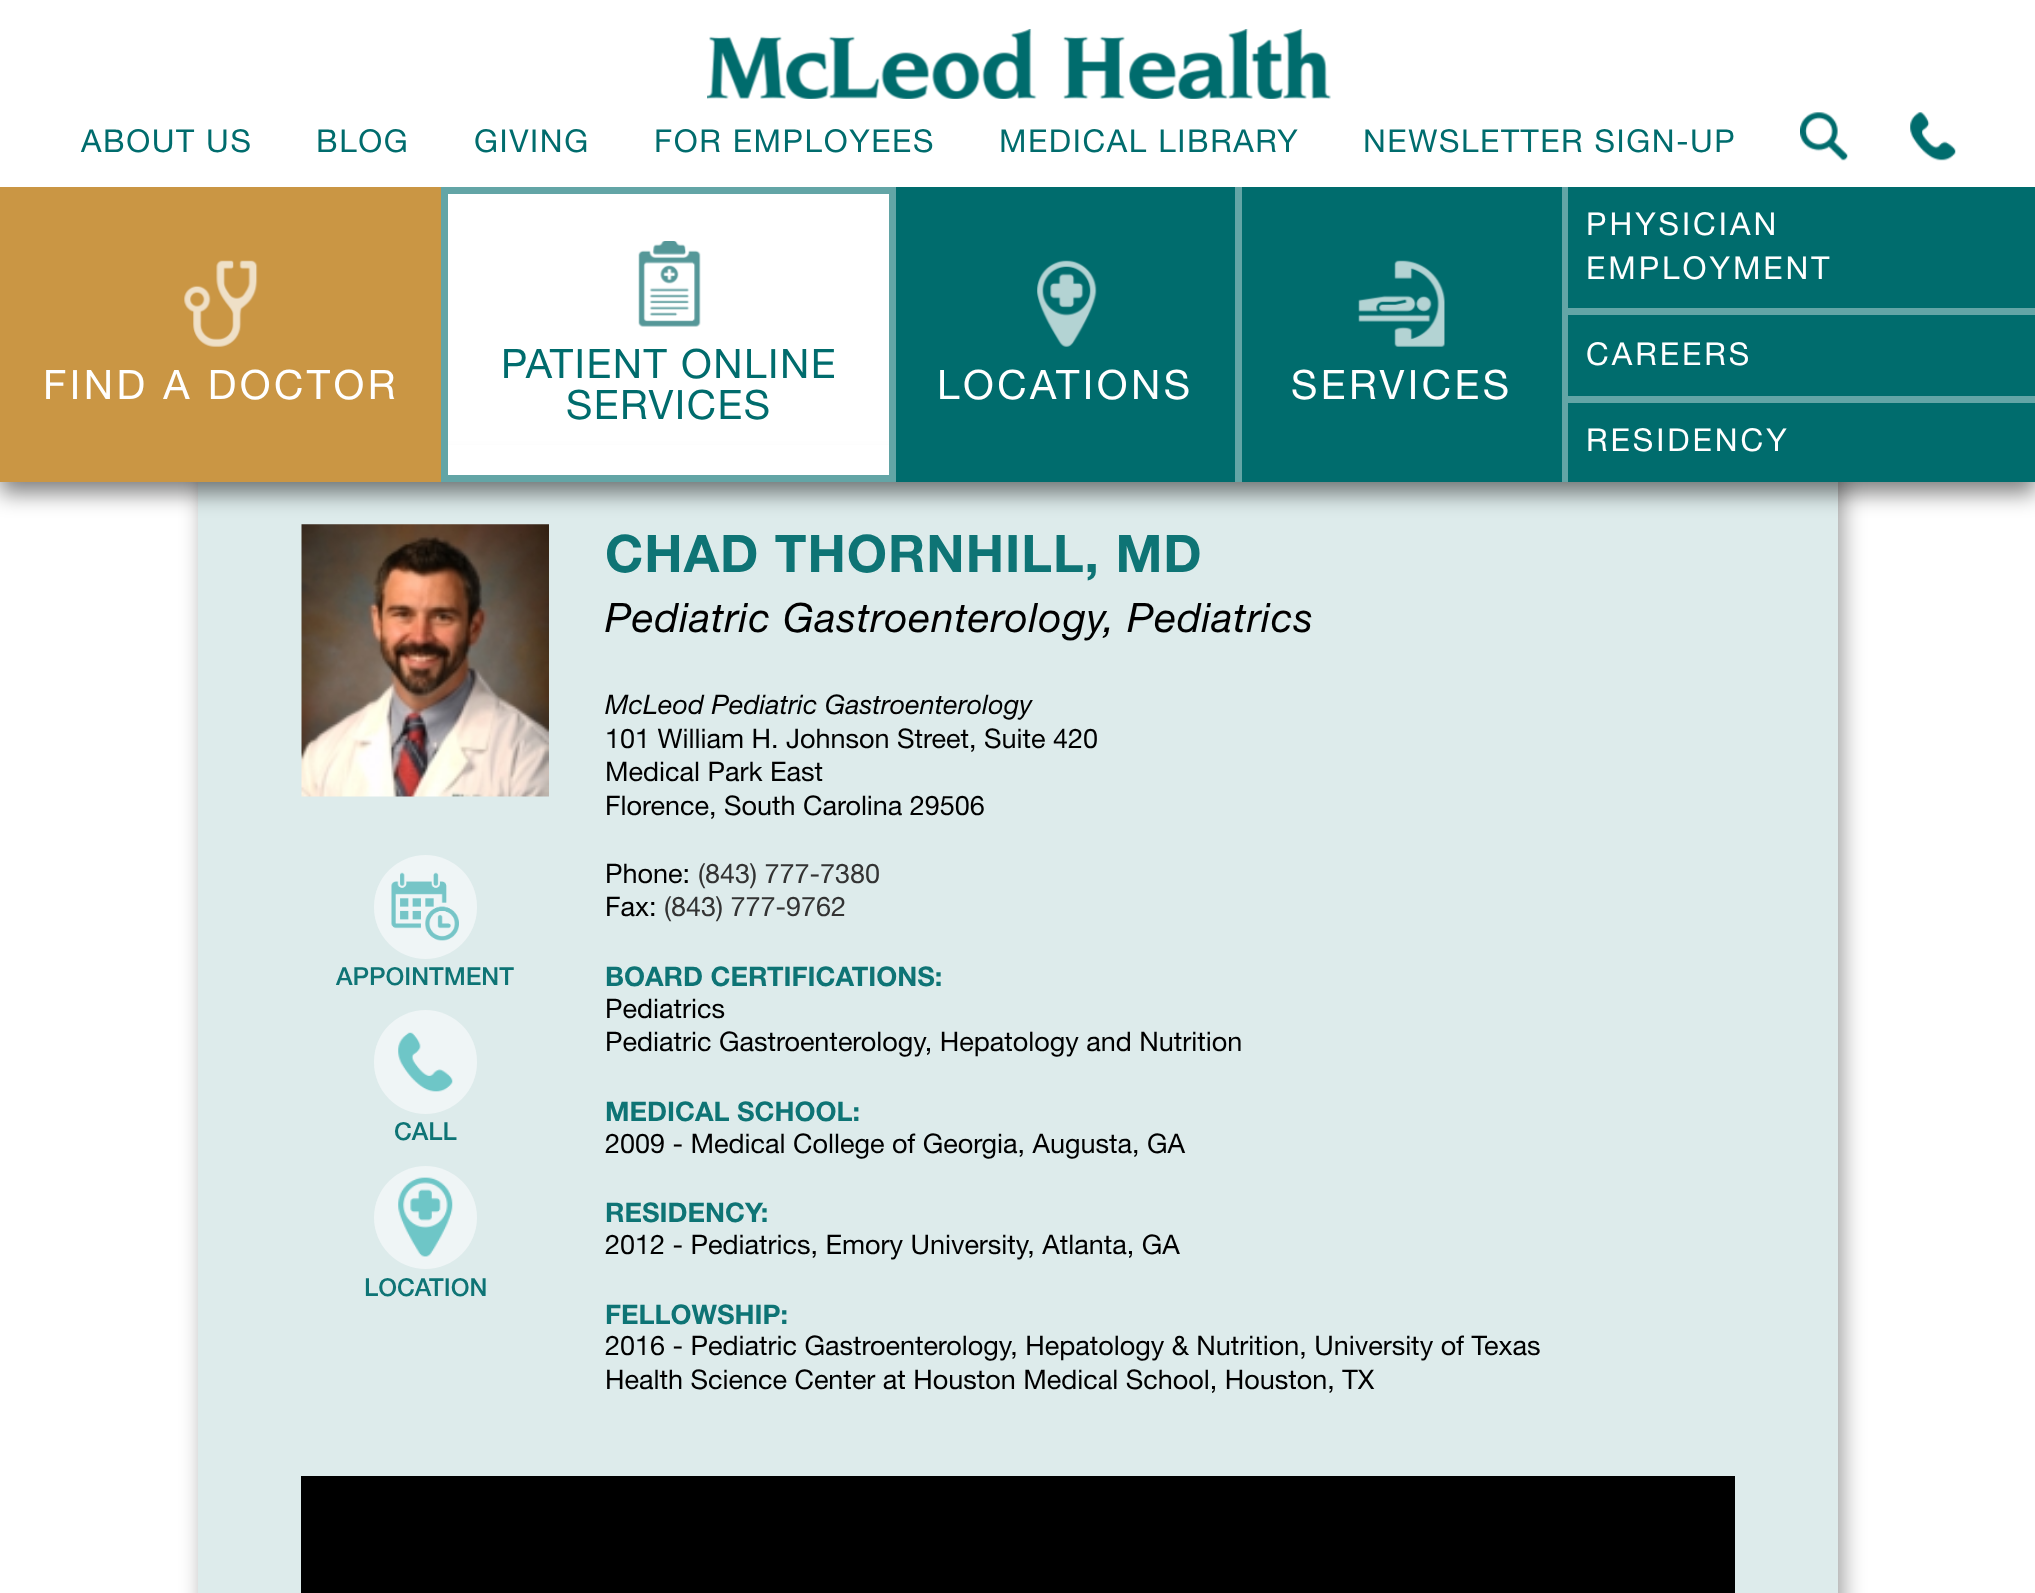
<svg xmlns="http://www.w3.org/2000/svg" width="2035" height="1593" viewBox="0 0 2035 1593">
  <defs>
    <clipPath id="clip1"><path d="M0 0H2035V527H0ZM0-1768H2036V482H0Z" clip-rule="evenodd"/></clipPath>
  </defs>
  <rect width="100%" height="100%" fill="rgb(255,255,255)"/>
  <image x="707" y="29" width="624" height="70" href="pic1.png"/>
  <g font-family="Helvetica Neue" font-size="31.5" letter-spacing="1.6" fill="rgb(0,108,109)">
    <text x="81" y="152">ABOUT US</text>
    <text x="316" y="152">BLOG</text>
    <text x="474" y="152">GIVING</text>
    <text x="654" y="152">FOR EMPLOYEES</text>
    <text x="999" y="152">MEDICAL LIBRARY</text>
    <text x="1363" y="152">NEWSLETTER SIGN-UP</text>
  </g>
  <image x="1800" y="112" width="48" height="49" href="pic2.png"/>
  <image x="1910" y="112" width="46" height="49" href="pic3.png"/>
  <rect x="203" y="466" width="1640" height="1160" fill="rgba(0,0,0,0.38)" filter="blur(11px)"/>
  <rect x="896" y="187" width="666" height="295" fill="rgb(0,108,109)"/>
  <rect x="0" y="187" width="441" height="295" fill="rgb(202,150,68)"/>
  <rect x="441" y="187" width="7" height="295" fill="rgb(99,165,166)"/>
  <image x="184" y="260" width="74" height="87" href="pic4.png"/>
  <rect x="889" y="187" width="7" height="295" fill="rgb(99,165,166)"/>
  <rect x="448" y="445" width="441" height="30" fill="rgb(255,255,255)"/>
  <rect x="448" y="187" width="441" height="7" fill="rgb(99,165,166)"/>
  <rect x="448" y="475" width="441" height="7" fill="rgb(99,165,166)"/>
  <image x="638" y="241" width="63" height="86" href="pic5.png"/>
  <rect x="1235" y="187" width="7" height="295" fill="rgb(99,165,166)"/>
  <image x="1037" y="260" width="60" height="87" href="pic6.png"/>
  <rect x="1562" y="187" width="6" height="295" fill="rgb(99,165,166)"/>
  <image x="1358" y="260" width="87" height="87" href="pic7.png"/>
  <rect x="1568" y="187" width="467" height="121" fill="rgb(0,108,109)"/>
  <rect x="1568" y="308" width="467" height="7" fill="rgb(99,165,166)"/>
  <rect x="1568" y="315" width="467" height="81" fill="rgb(0,108,109)"/>
  <rect x="1568" y="396" width="467" height="7" fill="rgb(99,165,166)"/>
  <rect x="1568" y="403" width="467" height="79" fill="rgb(0,108,109)"/>
  <rect x="198" y="482" width="1640" height="1111" fill="rgb(221,235,235)"/>
  <image x="301" y="524" width="248" height="273" href="pic8.png"/>
  <g clip-path="url(#clip1)">
    <rect x="0" y="-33" width="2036" height="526" fill="rgba(0,0,0,0.5)" filter="blur(11px)"/>
  </g>
  <text x="43" y="399" font-family="Helvetica Neue" font-size="40.5" letter-spacing="3.5" fill="rgb(255,255,255)">FIND A DOCTOR</text>
  <g font-family="Helvetica Neue" font-size="40.5" letter-spacing="1.5" fill="rgb(0,108,109)">
    <text x="501" y="378">PATIENT ONLINE</text>
    <text x="566" y="419">SERVICES</text>
  </g>
  <g font-family="Helvetica Neue" font-size="40.5" letter-spacing="3.5" fill="rgb(255,255,255)">
    <text x="937" y="399">LOCATIONS</text>
    <text x="1291" y="399">SERVICES</text>
  </g>
  <g font-family="Helvetica Neue" font-size="31.5" letter-spacing="3" fill="rgb(255,255,255)">
    <text>
      <tspan x="1586" y="235">PHYSICIAN</tspan>
      <tspan x="1586" y="279">EMPLOYMENT</tspan>
    </text>
    <text x="1586" y="365">CAREERS</text>
    <text x="1586" y="451">RESIDENCY</text>
  </g>
  <rect x="374" y="855" width="103" height="104" rx="51.5" fill="rgb(239,245,246)"/>
  <image x="391" y="872" width="68" height="69" href="pic9.png"/>
  <text x="336" y="985" font-family="Helvetica Neue" font-size="24.75" font-weight="500" fill="rgb(14,116,117)">APPOINTMENT</text>
  <rect x="374" y="1010" width="103" height="104" rx="51.5" fill="rgb(239,245,246)"/>
  <image x="398" y="1032" width="55" height="60" href="pic10.png"/>
  <text x="394" y="1140" font-family="Helvetica Neue" font-size="24.75" font-weight="500" fill="rgb(14,116,117)">CALL</text>
  <circle cx="425.5" cy="1217.5" r="51.5" fill="rgb(239,245,246)"/>
  <image x="398" y="1177" width="55" height="80" href="pic11.png"/>
  <text x="364" y="1296" font-family="Helvetica Neue" font-size="24.75" font-weight="500" fill="rgb(14,116,117)">LOCATION</text>
  <text x="605" y="572" font-family="Helvetica Neue" font-size="51.75" font-weight="bold" letter-spacing="1" fill="rgb(14,116,117)">CHAD THORNHILL, MD</text>
  <text x="605" y="632" font-family="Helvetica Neue" font-size="40.5" font-weight="500" font-style="italic" letter-spacing="0.8" fill="rgb(0,0,0)">Pediatric Gastroenterology, Pediatrics</text>
  <text x="605" y="714" font-family="Helvetica Neue" font-size="27" font-weight="500" font-style="italic" fill="rgb(0,0,0)">McLeod Pediatric Gastroenterology</text>
  <g font-family="Helvetica Neue" font-size="27" fill="rgb(0,0,0)">
    <text>
      <tspan x="605" y="748">101 William H. Johnson Street, Suite 420</tspan>
      <tspan x="605" y="781">Medical Park East</tspan>
      <tspan x="605" y="815">Florence, South Carolina 29506</tspan>
    </text>
    <text x="605" y="883">Phone:</text>
  </g>
  <text x="698" y="883" font-family="Helvetica Neue" font-size="27" fill="rgb(51,51,51)">(843) 777-7380</text>
  <text x="605" y="916" font-family="Helvetica Neue" font-size="27" fill="rgb(0,0,0)">Fax:</text>
  <text x="664" y="916" font-family="Helvetica Neue" font-size="27" fill="rgb(51,51,51)">(843) 777-9762</text>
  <text x="605" y="986" font-family="Helvetica Neue" font-size="27" font-weight="bold" fill="rgb(14,116,117)">BOARD CERTIFICATIONS:</text>
  <g font-family="Helvetica Neue" font-size="27" fill="rgb(0,0,0)">
    <text>
      <tspan x="605" y="1018">Pediatrics</tspan>
      <tspan x="605" y="1051">Pediatric Gastroenterology, Hepatology and Nutrition</tspan>
    </text>
  </g>
  <text x="605" y="1121" font-family="Helvetica Neue" font-size="27" font-weight="bold" fill="rgb(14,116,117)">MEDICAL SCHOOL:</text>
  <text x="605" y="1153" font-family="Helvetica Neue" font-size="27" fill="rgb(0,0,0)">2009 - Medical College of Georgia, Augusta, GA</text>
  <text x="605" y="1222" font-family="Helvetica Neue" font-size="27" font-weight="bold" fill="rgb(14,116,117)">RESIDENCY:</text>
  <text x="605" y="1254" font-family="Helvetica Neue" font-size="27" fill="rgb(0,0,0)">2012 - Pediatrics, Emory University, Atlanta, GA</text>
  <text x="605" y="1324" font-family="Helvetica Neue" font-size="27" font-weight="bold" fill="rgb(14,116,117)">FELLOWSHIP:</text>
  <g font-family="Helvetica Neue" font-size="27" fill="rgb(0,0,0)">
    <text>
      <tspan x="605" y="1355">2016 - Pediatric Gastroenterology, Hepatology &amp; Nutrition, University of Texas</tspan>
      <tspan x="605" y="1389">Health Science Center at Houston Medical School, Houston, TX</tspan>
    </text>
  </g>
  <rect x="301" y="1476" width="1434" height="117" fill="rgb(0,0,0)"/>
</svg>
